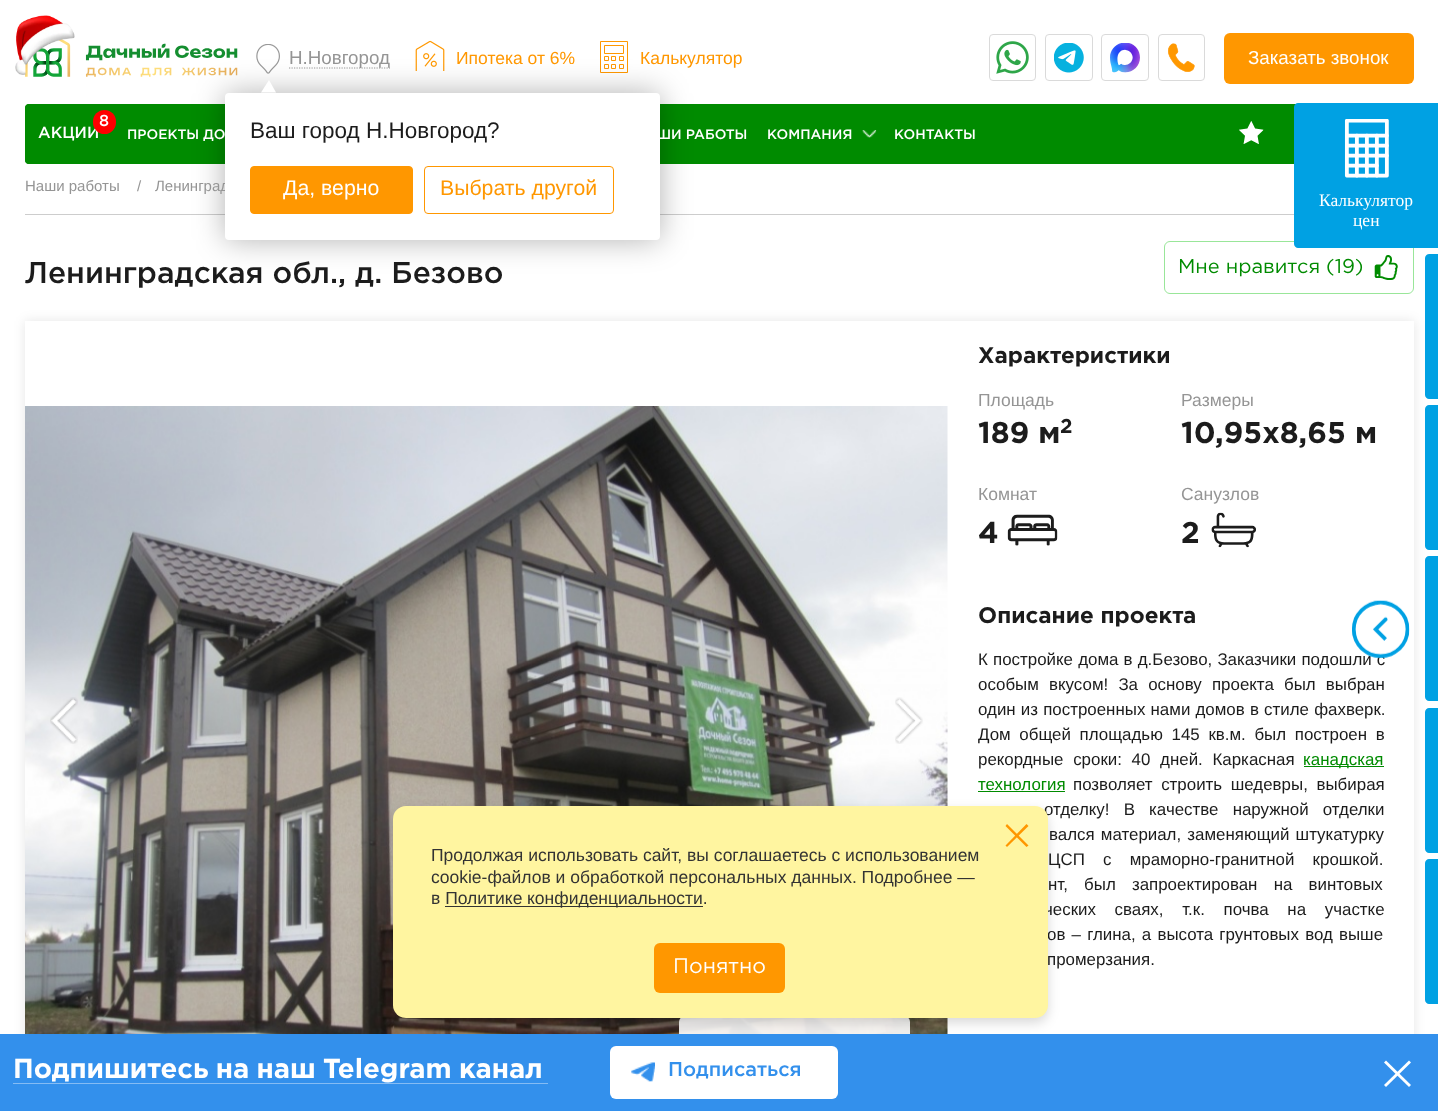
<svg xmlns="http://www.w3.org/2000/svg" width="1438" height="1111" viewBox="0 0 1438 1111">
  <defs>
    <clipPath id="clip1"><path d="M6 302H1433V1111H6ZM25 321H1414V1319H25Z" clip-rule="evenodd"/></clipPath>
  </defs>
  <rect width="100%" height="100%" fill="rgb(255,255,255)"/>
  <image x="25" y="39" width="213" height="38" href="pic2.png"/>
  <image x="15" y="15" width="60" height="60" href="pic1.png"/>
  <image x="256" y="44" width="24" height="30" href="pic3.png"/>
  <path d="M289 68H390" fill="none" stroke="rgb(153,153,153)" stroke-width="1.2" stroke-dasharray="1.25 1.25"/>
  <text x="289" y="64" font-family="Liberation Sans" font-size="18.75" fill="rgb(149,149,149)">Н.Новгород</text>
  <image x="415" y="40" width="30" height="31" href="pic8.png"/>
  <image x="600" y="41" width="28" height="32" href="pic9.png"/>
  <rect x="25" y="104" width="1389" height="60" rx="4" fill="rgb(0,139,0)"/>
  <rect x="25" y="214" width="1269" height="1" fill="rgb(205,205,205)"/>
  <rect x="225" y="93" width="435" height="147" rx="4" fill="rgba(0,0,0,0.3)" filter="blur(15.5px)"/>
  <text x="155" y="191" font-family="Liberation Sans" font-size="15" fill="rgb(149,149,149)">Ленинград</text>
  <rect x="225" y="93" width="435" height="147" rx="4" fill="rgb(255,255,255)"/>
  <path d="M276 92.5H261L269 80Z" fill="rgb(255,255,255)"/>
  <text x="250" y="138" font-family="Liberation Sans" font-size="22.5" fill="rgb(28,28,28)">Ваш город Н.Новгород?</text>
  <rect x="250.5" y="166.5" width="162" height="47" rx="3.5" fill="rgb(255,151,0)" stroke="rgb(255,151,0)"/>
  <text x="283" y="195" font-family="Liberation Sans" font-size="21.25" fill="rgb(255,255,255)">Да, верно</text>
  <rect x="424.5" y="166.5" width="189" height="47" rx="3.5" fill="none" stroke="rgb(255,151,0)"/>
  <text x="440" y="195" font-family="Liberation Sans" font-size="21.25" fill="rgb(255,151,0)">Выбрать другой</text>
  <rect x="989.5" y="34.5" width="46" height="46" rx="3.5" fill="none" stroke="rgb(218,218,218)"/>
  <image x="996" y="41" width="33" height="33" href="pic4.png"/>
  <rect x="1045.5" y="34.5" width="47" height="46" rx="3.5" fill="none" stroke="rgb(218,218,218)"/>
  <image x="1054" y="43" width="30" height="30" href="pic5.png"/>
  <rect x="1101.5" y="34.5" width="47" height="46" rx="3.5" fill="none" stroke="rgb(218,218,218)"/>
  <image x="1110" y="43" width="30" height="30" href="pic6.png"/>
  <rect x="1158.5" y="34.5" width="46" height="46" rx="3.5" fill="none" stroke="rgb(218,218,218)"/>
  <image x="1168" y="43" width="27" height="29" href="pic7.png"/>
  <rect x="1224" y="33" width="190" height="51" rx="6" fill="rgb(255,151,0)"/>
  <text x="1248" y="64" font-family="Liberation Sans" font-size="18.75" fill="rgb(255,255,255)">Заказать звонок</text>
  <g font-family="Liberation Sans" font-size="17.5" fill="rgb(255,151,0)">
    <text x="456" y="64">Ипотека от 6%</text>
    <text x="640" y="64">Калькулятор</text>
  </g>
  <path d="M29 104H119V164H29C27 164 25 162 25 160V108C25 106 27 104 29 104Z" fill="rgb(0,139,0)"/>
  <text x="38" y="138" font-family="Gotham" font-size="16" font-weight="500" fill="rgb(255,255,255)">АКЦИИ</text>
  <rect x="93" y="110" width="23" height="24" rx="11.5" fill="rgb(255,0,0)"/>
  <text x="99" y="126" font-family="Gotham" font-size="16" font-weight="500" fill="rgb(255,255,255)">8</text>
  <g font-family="Gotham" font-size="13.75" font-weight="500" fill="rgb(255,255,255)">
    <text x="127" y="139">ПРОЕКТЫ ДО</text>
    <text x="656" y="139">ШИ РАБОТЫ</text>
    <text x="767" y="139">КОМПАНИЯ</text>
  </g>
  <image x="862" y="130" width="15" height="8" href="pic10.png"/>
  <text x="894" y="139" font-family="Gotham" font-size="13.75" font-weight="500" fill="rgb(255,255,255)">КОНТАКТЫ</text>
  <image x="1239" y="121" width="25" height="23" href="pic11.png"/>
  <g font-family="Liberation Sans" font-size="15" fill="rgb(149,149,149)">
    <text x="25" y="191">Наши работы</text>
    <text x="137" y="191">/</text>
  </g>
  <text x="25" y="283" font-family="Gotham" font-size="30" font-weight="500" fill="rgb(28,28,28)">Ленинградская обл., д. Безово</text>
  <rect x="1164.5" y="241.5" width="249" height="52" rx="5.5" fill="none" stroke="rgb(153,230,153)"/>
  <text x="1178" y="273" font-family="Gotham" font-size="20" fill="rgb(0,139,0)">Мне нравится (19)</text>
  <image x="1374" y="255" width="24" height="25" href="pic12.png"/>
  <g clip-path="url(#clip1)">
    <rect x="25" y="321" width="1389" height="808" fill="rgba(0,0,0,0.1)" filter="blur(6px)"/>
  </g>
  <image x="25" y="406" width="923" height="628" href="pic13.png"/>
  <image x="50" y="697" width="28" height="47" href="pic14.png"/>
  <image x="895" y="697" width="28" height="47" href="pic15.png"/>
  <rect x="679" y="1016" width="231" height="65" rx="6" fill="rgba(255,255,255,0.9)"/>
  <text x="978" y="363" font-family="Gotham" font-size="22.5" font-weight="bold" fill="rgb(28,28,28)">Характеристики</text>
  <text x="978" y="406" font-family="Liberation Sans" font-size="17.5" fill="rgb(149,149,149)">Площадь</text>
  <text x="978" y="443" font-family="Gotham" font-size="30" font-weight="bold" fill="rgb(28,28,28)">189 м</text>
  <text x="1060" y="433" font-family="Gotham" font-size="20" font-weight="bold" fill="rgb(28,28,28)">2</text>
  <text x="1181" y="406" font-family="Liberation Sans" font-size="17.5" fill="rgb(149,149,149)">Размеры</text>
  <text x="1181" y="443" font-family="Gotham" font-size="30" font-weight="bold" fill="rgb(28,28,28)">10,95х8,65 м</text>
  <text x="978" y="500" font-family="Liberation Sans" font-size="17.5" fill="rgb(149,149,149)">Комнат</text>
  <text x="978" y="543" font-family="Gotham" font-size="30" font-weight="bold" fill="rgb(28,28,28)">4</text>
  <image x="1007" y="514" width="51" height="32" href="pic16.png"/>
  <text x="1181" y="500" font-family="Liberation Sans" font-size="17.5" fill="rgb(149,149,149)">Санузлов</text>
  <text x="1181" y="543" font-family="Gotham" font-size="30" font-weight="bold" fill="rgb(28,28,28)">2</text>
  <image x="1211" y="512" width="45" height="36" href="pic17.png"/>
  <text x="978" y="623" font-family="Gotham" font-size="22.5" font-weight="bold" fill="rgb(28,28,28)">Описание проекта</text>
  <g font-family="Liberation Sans" font-size="16.9" fill="rgb(28,28,28)">
    <text>
      <tspan x="978" y="665" word-spacing="0.5">К постройке дома в д.Безово, Заказчики подошли с</tspan>
      <tspan x="978" y="690" word-spacing="5.5">особым вкусом! За основу проекта был выбран</tspan>
      <tspan x="978" y="715" word-spacing="0.5">один из построенных нами домов в стиле фахверк.</tspan>
      <tspan x="978" y="740" word-spacing="4">Дом общей площадью 145 кв.м. был построен в</tspan>
      <tspan x="978" y="765" word-spacing="5">рекордные сроки: 40 дней. Каркасная</tspan>
    </text>
  </g>
  <rect x="1304" y="766" width="80" height="1" fill="rgb(0,139,0)"/>
  <g font-family="Liberation Sans" font-size="16.9" fill="rgb(0,139,0)">
    <text x="1303" y="765">канадская</text>
    <text x="978" y="790">технология</text>
  </g>
  <rect x="978" y="791" width="87" height="1" fill="rgb(0,139,0)"/>
  <g font-family="Liberation Sans" font-size="16.9" fill="rgb(28,28,28)">
    <text x="1073" y="790" word-spacing="4">позволяет строить шедевры, выбирая</text>
    <text x="1044" y="815" word-spacing="9.5">отделку! В качестве наружной отделки</text>
    <text x="1049" y="840" word-spacing="1.5">вался материал, заменяющий штукатурку</text>
    <text>
      <tspan x="1048" y="865" word-spacing="13.5">ЦСП с мраморно-гранитной крошкой.</tspan>
      <tspan x="1048" y="890" word-spacing="11.5">нт, был запроектирован на винтовых</tspan>
    </text>
    <text x="1044" y="915" word-spacing="14">ческих сваях, т.к. почва на участке</text>
    <text>
      <tspan x="1047" y="940" word-spacing="1.5">ов – глина, а высота грунтовых вод выше</tspan>
      <tspan x="1047" y="965">промерзания.</tspan>
    </text>
  </g>
  <rect x="393" y="811" width="655" height="212" rx="13" fill="rgba(0,0,0,0.15)" filter="blur(6px)"/>
  <rect x="393" y="806" width="655" height="212" rx="13" fill="rgb(255,245,160)"/>
  <path d="M1007 824L1028.5 845.5L1026.5 847L1005.5 826Z" fill="rgb(255,151,0)"/>
  <path d="M1005.5 845.5L1026.5 824L1028.5 826L1007 847Z" fill="rgb(255,151,0)"/>
  <g font-family="Liberation Sans" font-size="17.5" fill="rgb(51,51,51)">
    <text>
      <tspan x="431" y="861">Продолжая использовать сайт, вы соглашаетесь с использованием</tspan>
      <tspan x="431" y="883">cookie-файлов и обработкой персональных данных. Подробнее —</tspan>
      <tspan x="431" y="904">в Политике</tspan>
    </text>
  </g>
  <rect x="445" y="906" width="258" height="1" fill="rgb(51,51,51)"/>
  <text x="527" y="904" font-family="Liberation Sans" font-size="17.5" fill="rgb(51,51,51)">конфиденциальности.</text>
  <rect x="654" y="943" width="131" height="50" rx="6" fill="rgb(255,151,0)"/>
  <text x="673" y="973" font-family="Gotham" font-size="21.25" fill="rgb(255,255,255)">Понятно</text>
  <rect x="0" y="1034" width="1438" height="77" fill="rgb(51,144,236)"/>
  <text x="13" y="1078" word-spacing="-1" font-family="Gotham" font-size="27.5" font-weight="bold" fill="rgb(255,255,255)">Подпишитесь на наш Telegram канал</text>
  <rect x="13" y="1083" width="535" height="1" fill="rgb(133,188,244)"/>
  <rect x="610" y="1046" width="228" height="53" rx="6" fill="rgb(255,255,255)"/>
  <image x="631" y="1062" width="24" height="20" href="pic18.png"/>
  <text x="668" y="1076" font-family="Gotham" font-size="20" font-weight="500" fill="rgb(51,144,236)">Подписаться</text>
  <path d="M1409 1060.5L1411 1062.5L1386 1087L1384 1085Z" fill="rgb(255,255,255)"/>
  <path d="M1384 1062.5L1386 1060.5L1411 1085L1409 1087Z" fill="rgb(255,255,255)"/>
  <path d="M1298 103H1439V248H1298C1296 248 1294 246 1294 244V107C1294 105 1296 103 1298 103Z" fill="rgb(0,161,227)"/>
  <image x="1344" y="119" width="45" height="59" href="pic19.png"/>
  <g font-family="Liberation Serif" font-size="17.5" fill="rgb(255,255,255)">
    <text x="1319" y="206">Калькулятор</text>
    <text x="1353" y="226">цен</text>
  </g>
  <image x="1352" y="600" width="58" height="59" href="pic20.png"/>
  <path d="M1429 254H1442V399H1429C1427 399 1425 397 1425 395V258C1425 256 1427 254 1429 254Z" fill="rgb(0,161,227)"/>
  <path d="M1429 405H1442V550H1429C1427 550 1425 548 1425 546V409C1425 407 1427 405 1429 405Z" fill="rgb(0,161,227)"/>
  <path d="M1429 556H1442V701H1429C1427 701 1425 699 1425 697V560C1425 558 1427 556 1429 556Z" fill="rgb(0,161,227)"/>
  <path d="M1429 708H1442V853H1429C1427 853 1425 851 1425 849V712C1425 710 1427 708 1429 708Z" fill="rgb(0,161,227)"/>
  <path d="M1429 859H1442V1004H1429C1427 1004 1425 1002 1425 1000V863C1425 861 1427 859 1429 859Z" fill="rgb(0,161,227)"/>
</svg>
